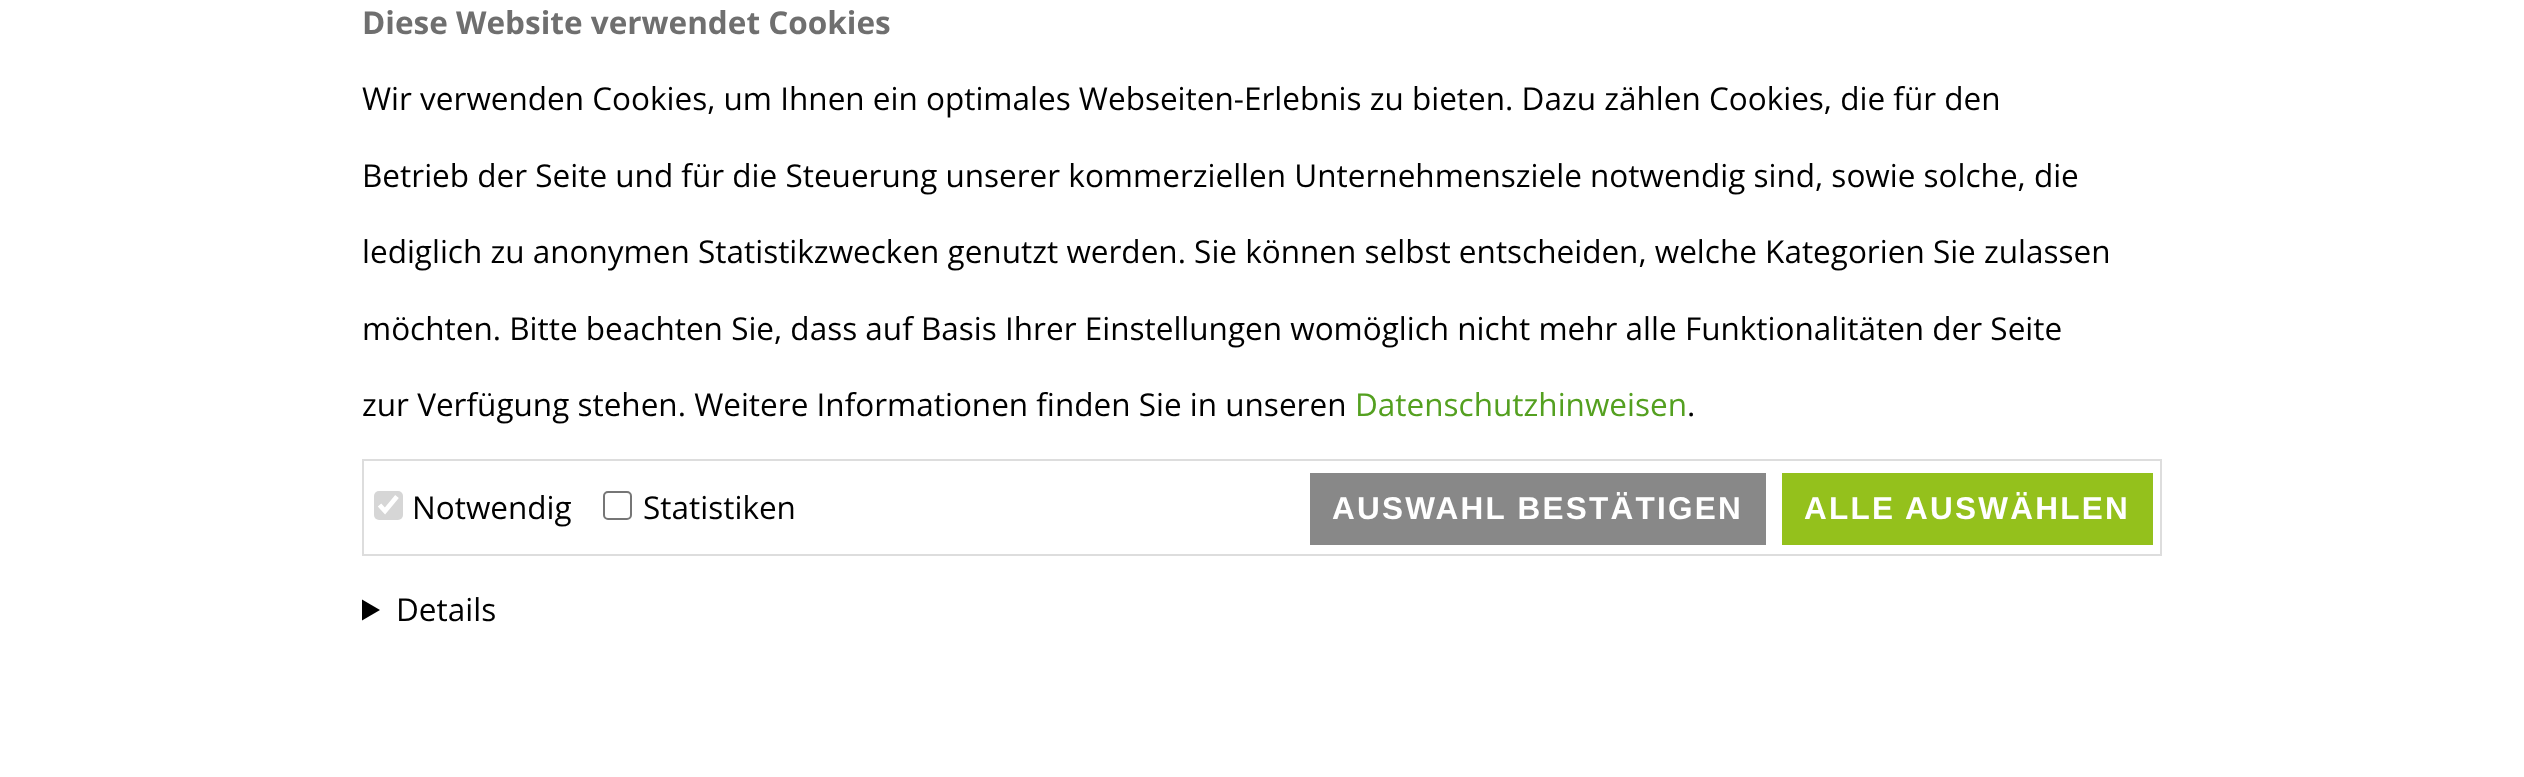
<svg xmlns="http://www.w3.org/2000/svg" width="2524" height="777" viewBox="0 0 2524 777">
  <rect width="100%" height="100%" fill="rgb(255,255,255)"/>
  <text x="362" y="34" font-family="Open Sans" font-size="31.5" font-weight="bold" fill="rgb(111,111,111)">Diese Website verwendet Cookies</text>
  <g font-family="Open Sans" font-size="31.5" fill="rgb(0,0,0)">
    <text x="362" y="110">Wir verwenden Cookies, um Ihnen ein optimales Webseiten-Erlebnis zu bieten. Dazu zählen Cookies, die für den</text>
    <text x="362" y="187">Betrieb der Seite und für die Steuerung unserer kommerziellen Unternehmensziele notwendig sind, sowie solche, die</text>
    <text x="362" y="263">lediglich zu anonymen Statistikzwecken genutzt werden. Sie können selbst entscheiden, welche Kategorien Sie zulassen</text>
    <text x="362" y="340">möchten. Bitte beachten Sie, dass auf Basis Ihrer Einstellungen womöglich nicht mehr alle Funktionalitäten der Seite</text>
    <text x="362" y="416">zur Verfügung stehen. Weitere Informationen finden Sie in unseren</text>
  </g>
  <text x="1355" y="416" font-family="Open Sans" font-size="31.5" fill="rgb(84,160,32)">Datenschutzhinweisen</text>
  <text x="1687" y="416" font-family="Open Sans" font-size="31.5" fill="rgb(0,0,0)">.</text>
  <rect x="363" y="460" width="1798" height="95" fill="none" stroke="rgb(221,221,221)" stroke-width="2"/>
  <rect x="374" y="491" width="29" height="29" rx="5" fill="rgb(214,214,214)"/>
  <path d="M379.5 505L385 511L397 496.5" fill="none" stroke="rgb(255,255,255)" stroke-width="4.7"/>
  <text x="412" y="519" font-family="Open Sans" font-size="31.5" fill="rgb(0,0,0)">Notwendig</text>
  <rect x="604" y="492" width="27" height="27" rx="4" fill="none" stroke="rgb(118,118,118)" stroke-width="2"/>
  <text x="643" y="519" font-family="Open Sans" font-size="31.5" fill="rgb(0,0,0)">Statistiken</text>
  <rect x="1310" y="473" width="456" height="72" fill="rgb(136,136,136)"/>
  <text x="1332" y="519" font-family="Liberation Sans" font-size="31.5" font-weight="bold" letter-spacing="2.25" fill="rgb(255,255,255)">AUSWAHL BESTÄTIGEN</text>
  <rect x="1782" y="473" width="371" height="72" fill="rgb(148,193,28)"/>
  <text x="1804" y="519" font-family="Liberation Sans" font-size="31.5" font-weight="bold" letter-spacing="2.25" fill="rgb(255,255,255)">ALLE AUSWÄHLEN</text>
  <path d="M362 599.5L380 610L362 620.5Z" fill="rgb(0,0,0)"/>
  <text x="396" y="621" font-family="Open Sans" font-size="31.5" fill="rgb(0,0,0)">Details</text>
</svg>
